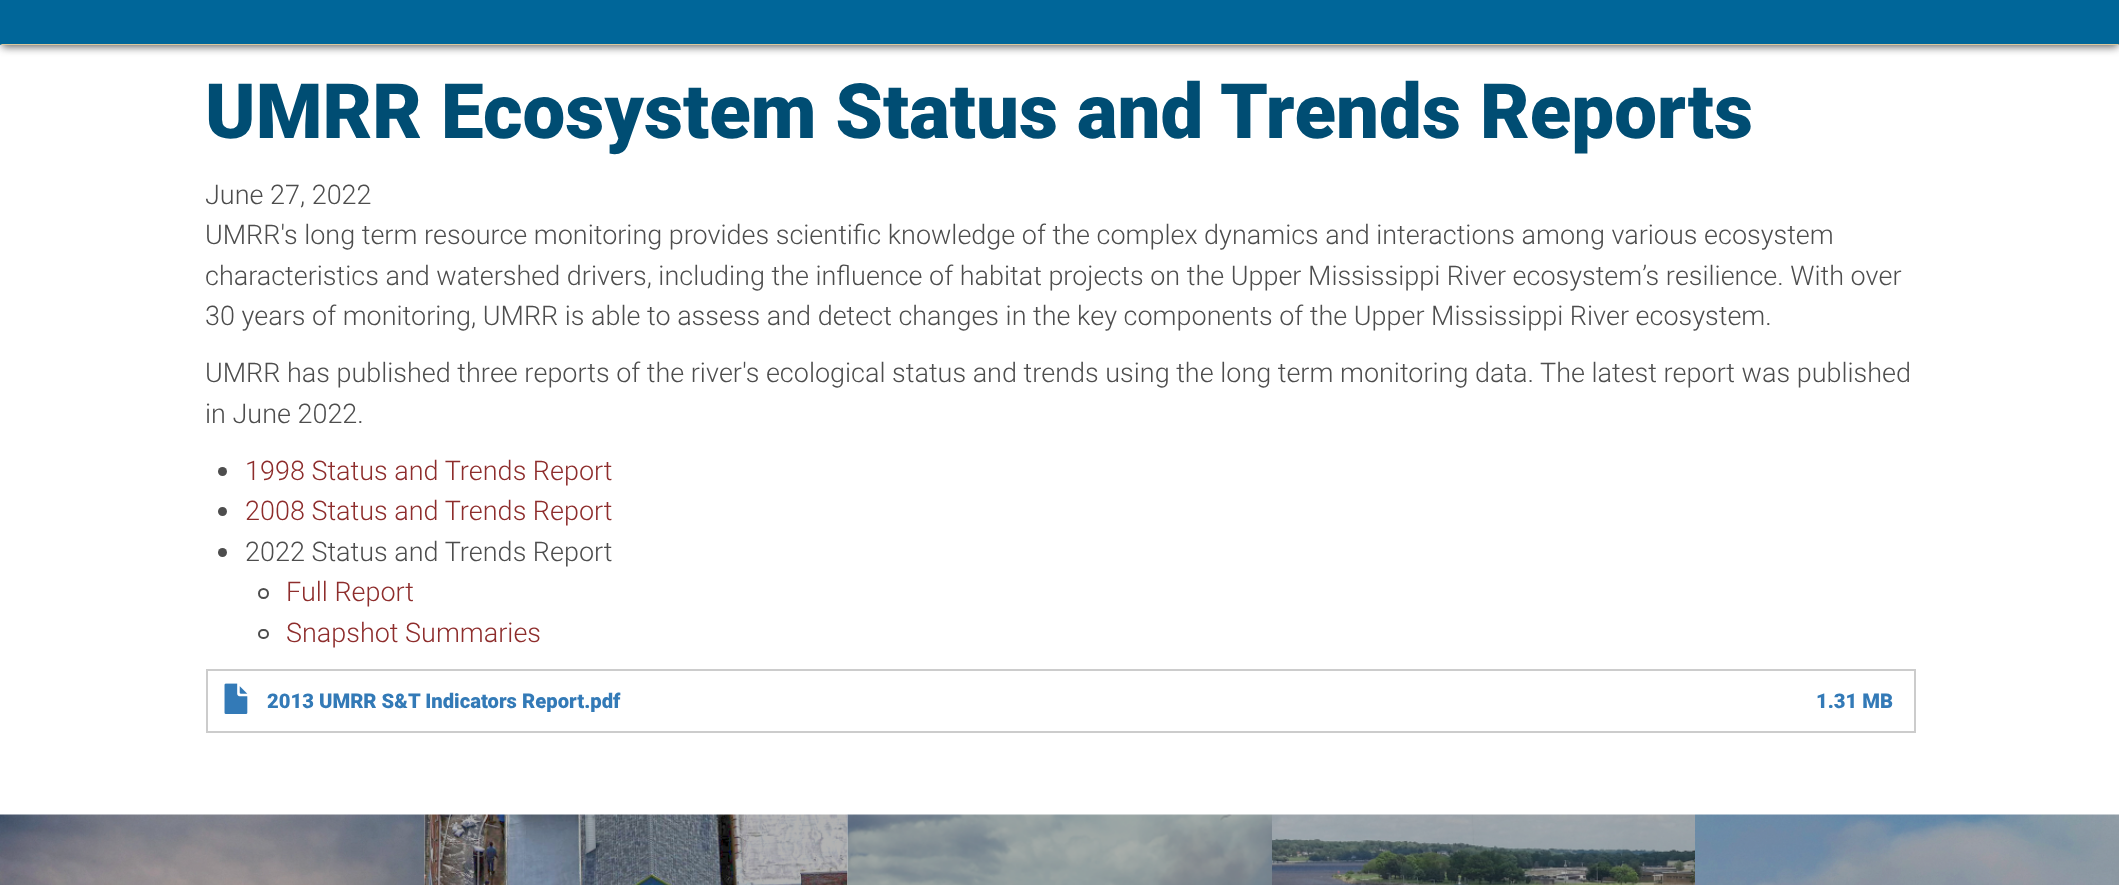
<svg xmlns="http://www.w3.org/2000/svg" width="2119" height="885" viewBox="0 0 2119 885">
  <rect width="100%" height="100%" fill="rgb(255,255,255)"/>
  <rect x="2" y="-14" width="2116" height="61" fill="rgba(50,50,50,0.75)" filter="blur(4.5px)"/>
  <rect x="0" y="0" width="2119" height="45" fill="rgb(0,102,153)"/>
  <path d="M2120 45H0L2 44H2118Z" fill="rgb(219,199,156)"/>
  <text x="205" y="138" font-family="Roboto" font-size="76.25" font-weight="900" fill="rgb(0,77,115)">UMRR Ecosystem Status and Trends Reports</text>
  <g font-family="Roboto" font-size="27" font-weight="300" fill="rgb(77,77,77)">
    <text>
      <tspan x="205" y="204">June 27, 2022</tspan>
      <tspan x="205" y="244">UMRR's long term resource monitoring provides scientific knowledge of the complex dynamics and interactions among various ecosystem</tspan>
      <tspan x="205" y="285">characteristics and watershed drivers, including the influence of habitat projects on the Upper Mississippi River ecosystem’s resilience. With over</tspan>
      <tspan x="205" y="325">30 years of monitoring, UMRR is able to assess and detect changes in the key components of the Upper Mississippi River ecosystem.</tspan>
    </text>
    <text>
      <tspan x="205" y="382">UMRR has published three reports of the river's ecological status and trends using the long term monitoring data. The latest report was published</tspan>
      <tspan x="205" y="423">in June 2022.</tspan>
    </text>
  </g>
  <circle cx="222.5" cy="471.5" r="4.5" fill="rgb(77,77,77)"/>
  <text x="245" y="480" font-family="Roboto" font-size="27" font-weight="300" fill="rgb(142,45,44)">1998 Status and Trends Report</text>
  <circle cx="222.5" cy="511.5" r="4.5" fill="rgb(77,77,77)"/>
  <text x="245" y="520" font-family="Roboto" font-size="27" font-weight="300" fill="rgb(142,45,44)">2008 Status and Trends Report</text>
  <circle cx="222.5" cy="552.5" r="4.5" fill="rgb(77,77,77)"/>
  <text x="245" y="561" font-family="Roboto" font-size="27" font-weight="300" fill="rgb(77,77,77)">2022 Status and Trends Report</text>
  <circle cx="263.5" cy="593.5" r="4.5" fill="none" stroke="rgb(77,77,77)" stroke-width="2"/>
  <text x="286" y="601" font-family="Roboto" font-size="27" font-weight="300" fill="rgb(142,45,44)">Full Report</text>
  <rect x="259" y="630" width="9" height="8" rx="4" fill="none" stroke="rgb(77,77,77)" stroke-width="2"/>
  <text x="286" y="642" font-family="Roboto" font-size="27" font-weight="300" fill="rgb(142,45,44)">Snapshot Summaries</text>
  <rect x="206" y="669" width="1710" height="2" fill="rgb(204,204,204)"/>
  <rect x="206" y="731" width="1590" height="2" fill="rgb(204,204,204)"/>
  <rect x="206" y="669" width="2" height="63" fill="rgb(204,204,204)"/>
  <image x="224" y="683" width="24" height="31" href="pic1.png"/>
  <text x="267" y="708" font-family="Roboto" font-size="20.25" font-weight="900" fill="rgb(51,122,183)">2013 UMRR S&amp;T Indicators Report.pdf</text>
  <rect x="1914" y="669" width="2" height="63" fill="rgb(204,204,204)"/>
  <rect x="1796" y="731" width="120" height="2" fill="rgb(204,204,204)"/>
  <text x="1816" y="708" font-family="Roboto" font-size="20.25" font-weight="900" fill="rgb(51,122,183)">1.31 MB</text>
  <image x="0" y="814" width="425" height="71" href="pic2.png"/>
  <image x="424" y="814" width="424" height="71" href="pic3.png"/>
  <image x="847" y="814" width="425" height="71" href="pic4.png"/>
  <image x="1272" y="814" width="423" height="71" href="pic5.png"/>
  <image x="1695" y="814" width="424" height="71" href="pic6.png"/>
</svg>
